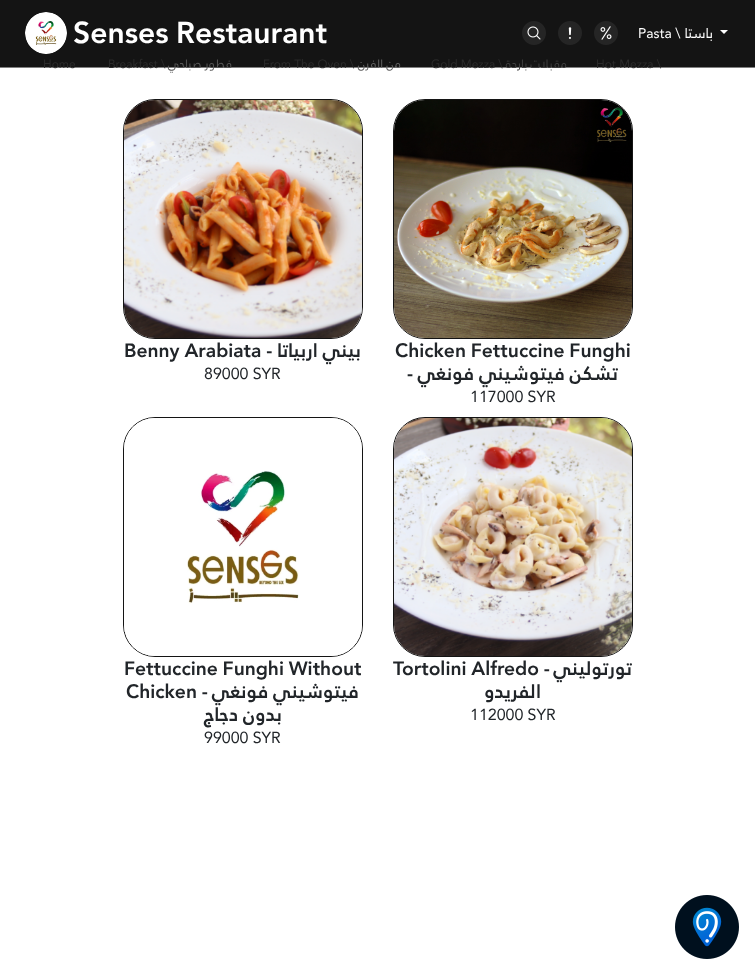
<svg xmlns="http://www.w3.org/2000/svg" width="755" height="975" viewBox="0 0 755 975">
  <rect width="100%" height="100%" fill="rgb(255,255,255)"/>
  <rect x="0" y="1" width="755" height="67" fill="rgb(128,128,128)" filter="blur(0.5px)"/>
  <rect x="0" y="0" width="755" height="67" fill="rgb(20,20,20)"/>
  <image x="25" y="12" width="42" height="42" href="pic1.png"/>
  <text x="73" y="43" font-family="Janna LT" font-size="30" font-weight="bold" fill="rgb(255,255,255)">Senses Restaurant</text>
  <image x="522" y="21" width="24" height="24" href="pic2.png"/>
  <image x="558" y="21" width="24" height="24" href="pic3.png"/>
  <image x="594" y="21" width="24" height="24" href="pic4.png"/>
  <text x="638" y="38" font-family="Janna LT" font-size="14" fill="rgb(255,255,255)">Pasta \</text>
  <text x="713" y="38" font-family="Janna LT" font-size="14" direction="rtl" fill="rgb(255,255,255)">باستا</text>
  <path d="M720 30H728L724 34Z" fill="rgb(255,255,255)"/>
  <g font-family="Janna LT" font-size="12" fill="rgb(43,43,43)">
    <text x="43" y="68">Home</text>
    <text x="108" y="68">Breakfast \</text>
  </g>
  <text x="232" y="68" font-family="Janna LT" font-size="12" direction="rtl" fill="rgb(87,87,87)">فطور صباحي</text>
  <text x="263" y="68" font-family="Janna LT" font-size="12" fill="rgb(43,43,43)">From The Oven \</text>
  <text x="401" y="68" font-family="Janna LT" font-size="12" direction="rtl" fill="rgb(99,99,99)">من الفرن</text>
  <text x="431" y="68" font-family="Janna LT" font-size="12" fill="rgb(43,43,43)">Gold Mezza \</text>
  <text x="567" y="68" font-family="Janna LT" font-size="12" direction="rtl" fill="rgb(63,63,63)">مقبلات باردة</text>
  <text x="596" y="68" font-family="Janna LT" font-size="12" fill="rgb(43,43,43)">Hot Mezza \</text>
  <rect x="123.5" y="99.5" width="239" height="239" rx="31.5" fill="none" stroke="rgb(20,20,20)"/>
  <image x="124" y="100" width="238" height="238" href="pic5.png"/>
  <text x="124" y="357" font-family="Janna LT" font-size="19.25" font-weight="bold" fill="rgb(33,37,41)">Benny Arabiata -</text>
  <text x="361" y="357" font-family="Janna LT" font-size="19.25" font-weight="bold" direction="rtl" fill="rgb(33,37,41)">بيني اربياتا</text>
  <text x="204" y="379" font-family="Janna LT" font-size="16" fill="rgb(33,37,41)">89000 SYR</text>
  <rect x="393.5" y="99.5" width="239" height="239" rx="31.5" fill="none" stroke="rgb(20,20,20)"/>
  <image x="394" y="100" width="238" height="238" href="pic6.png"/>
  <g font-family="Janna LT" font-size="19.25" font-weight="bold" fill="rgb(33,37,41)">
    <text x="395" y="357">Chicken Fettuccine Funghi</text>
    <text x="407" y="380">-</text>
  </g>
  <text x="618" y="380" font-family="Janna LT" font-size="19.25" font-weight="bold" direction="rtl" fill="rgb(33,37,41)">تشكن فيتوشيني فونغي</text>
  <text x="470" y="402" font-family="Janna LT" font-size="16" fill="rgb(33,37,41)">117000 SYR</text>
  <rect x="123.5" y="417.5" width="239" height="239" rx="31.5" fill="none" stroke="rgb(20,20,20)"/>
  <image x="124" y="418" width="238" height="238" href="pic7.png"/>
  <g font-family="Janna LT" font-size="19.25" font-weight="bold" fill="rgb(33,37,41)">
    <text x="124" y="675">Fettuccine Funghi Without</text>
    <text x="126" y="698">Chicken -</text>
  </g>
  <g font-family="Janna LT" font-size="19.25" font-weight="bold" direction="rtl" fill="rgb(33,37,41)">
    <text x="359" y="698">فيتوشيني فونغي</text>
    <text x="282" y="721">بدون دجاج</text>
  </g>
  <text x="204" y="743" font-family="Janna LT" font-size="16" fill="rgb(33,37,41)">99000 SYR</text>
  <rect x="393.5" y="417.5" width="239" height="239" rx="31.5" fill="none" stroke="rgb(20,20,20)"/>
  <image x="394" y="418" width="238" height="238" href="pic8.png"/>
  <text x="393" y="675" font-family="Janna LT" font-size="19.25" font-weight="bold" fill="rgb(33,37,41)">Tortolini Alfredo -</text>
  <g font-family="Janna LT" font-size="19.25" font-weight="bold" direction="rtl" fill="rgb(33,37,41)">
    <text x="632" y="675">تورتوليني</text>
    <text x="541" y="698">الفريدو</text>
  </g>
  <text x="470" y="720" font-family="Janna LT" font-size="16" fill="rgb(33,37,41)">112000 SYR</text>
  <image x="675" y="895" width="64" height="64" href="pic9.png"/>
</svg>
